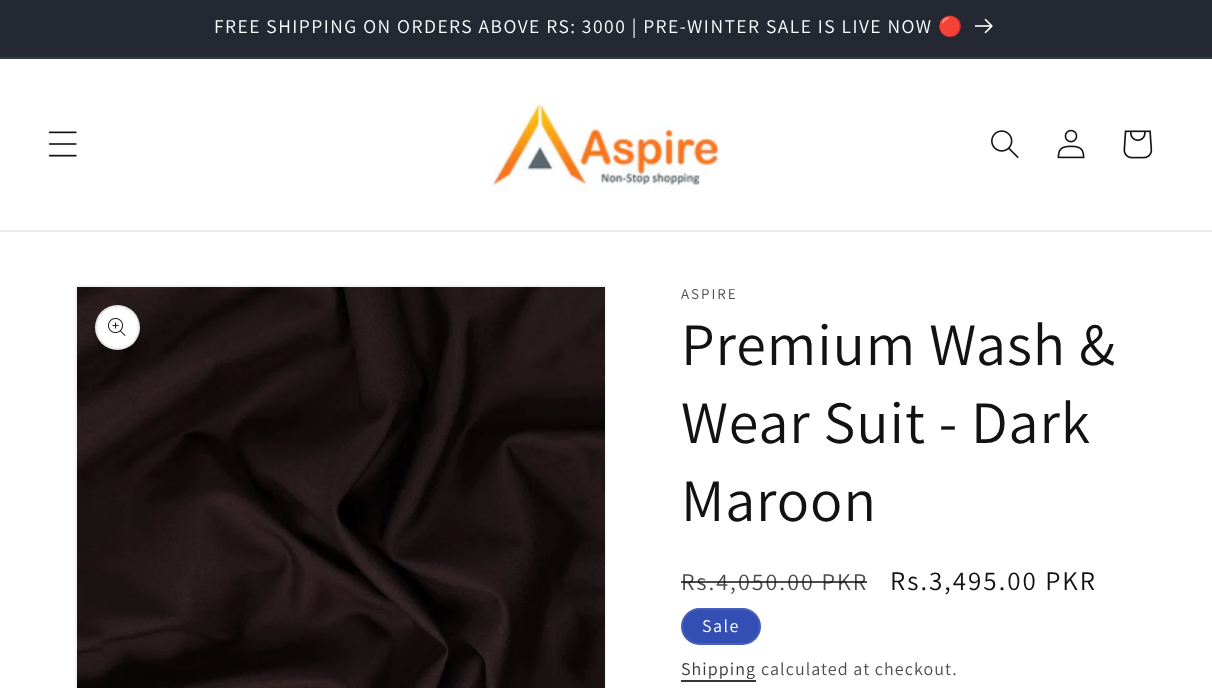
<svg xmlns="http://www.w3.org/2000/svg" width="1212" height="688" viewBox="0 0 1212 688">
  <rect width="100%" height="100%" fill="rgb(255,255,255)"/>
  <rect x="0" y="0" width="1212" height="57" fill="rgb(36,40,51)"/>
  <rect x="0" y="57" width="1212" height="2" fill="rgb(54,57,67)"/>
  <text x="214" y="33" font-family="Assistant" font-size="19.5" letter-spacing="1.5" fill="rgb(255,255,255)">FREE SHIPPING ON ORDERS ABOVE RS: 3000 | PRE-WINTER SALE IS LIVE NOW</text>
  <text x="938" y="33" font-family="Noto Color Emoji" font-size="19.5" letter-spacing="1.5" fill="rgb(255,255,255)">🔴</text>
  <image x="975" y="18" width="18" height="16" href="pic1.png"/>
  <rect x="0" y="230" width="1212" height="2" fill="rgb(236,236,236)"/>
  <image x="48" y="131" width="29" height="26" href="pic2.png"/>
  <image x="493" y="101" width="226" height="92" href="pic3.png"/>
  <image x="991" y="130" width="28" height="28" href="pic4.png"/>
  <image x="1057" y="129" width="28" height="30" href="pic5.png"/>
  <image x="1123" y="130" width="30" height="29" href="pic6.png"/>
  <rect x="76" y="286" width="529" height="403" fill="none" stroke="rgb(243,243,243)" stroke-width="2"/>
  <image x="77" y="287" width="528" height="401" href="pic7.png"/>
  <circle cx="117.5" cy="327.5" r="22.5" fill="rgb(255,255,255)"/>
  <circle cx="117.5" cy="327.5" r="21.5" fill="none" stroke="rgba(18,18,18,0.1)" stroke-width="2"/>
  <image x="108" y="318" width="18" height="18" href="pic8.png"/>
  <text x="681" y="299" font-family="Assistant" font-size="15" letter-spacing="2" fill="rgb(77,77,77)">ASPIRE</text>
  <g font-family="Assistant" font-size="60" letter-spacing="0.9" fill="rgb(18,18,18)">
    <text>
      <tspan x="681" y="365">Premium Wash &amp;</tspan>
      <tspan x="681" y="443">Wear Suit - Dark</tspan>
      <tspan x="681" y="521">Maroon</tspan>
    </text>
  </g>
  <text x="681" y="590" font-family="Assistant" font-size="24" letter-spacing="2" fill="rgb(77,77,77)">Rs.4,050.00 PKR</text>
  <rect x="681" y="581" width="186" height="2" fill="rgba(18,18,18,0.75)"/>
  <text x="890" y="590" font-family="Assistant" font-size="27" letter-spacing="2" fill="rgb(18,18,18)">Rs.3,495.00 PKR</text>
  <rect x="681" y="608" width="80" height="37" rx="18.5" fill="rgb(51,79,180)"/>
  <rect x="682" y="609" width="78" height="35" rx="17.5" fill="none" stroke="rgba(255,255,255,0.1)" stroke-width="2"/>
  <text x="702" y="632" font-family="Assistant" font-size="18" letter-spacing="1.5" fill="rgb(255,255,255)">Sale</text>
  <text x="681" y="675" font-family="Assistant" font-size="18" letter-spacing="1.05" fill="rgb(54,54,54)">Shipping</text>
  <rect x="681" y="680" width="75" height="2" fill="rgb(54,54,54)"/>
  <text x="761" y="675" font-family="Assistant" font-size="18" letter-spacing="1.05" fill="rgb(77,77,77)">calculated at checkout.</text>
</svg>
